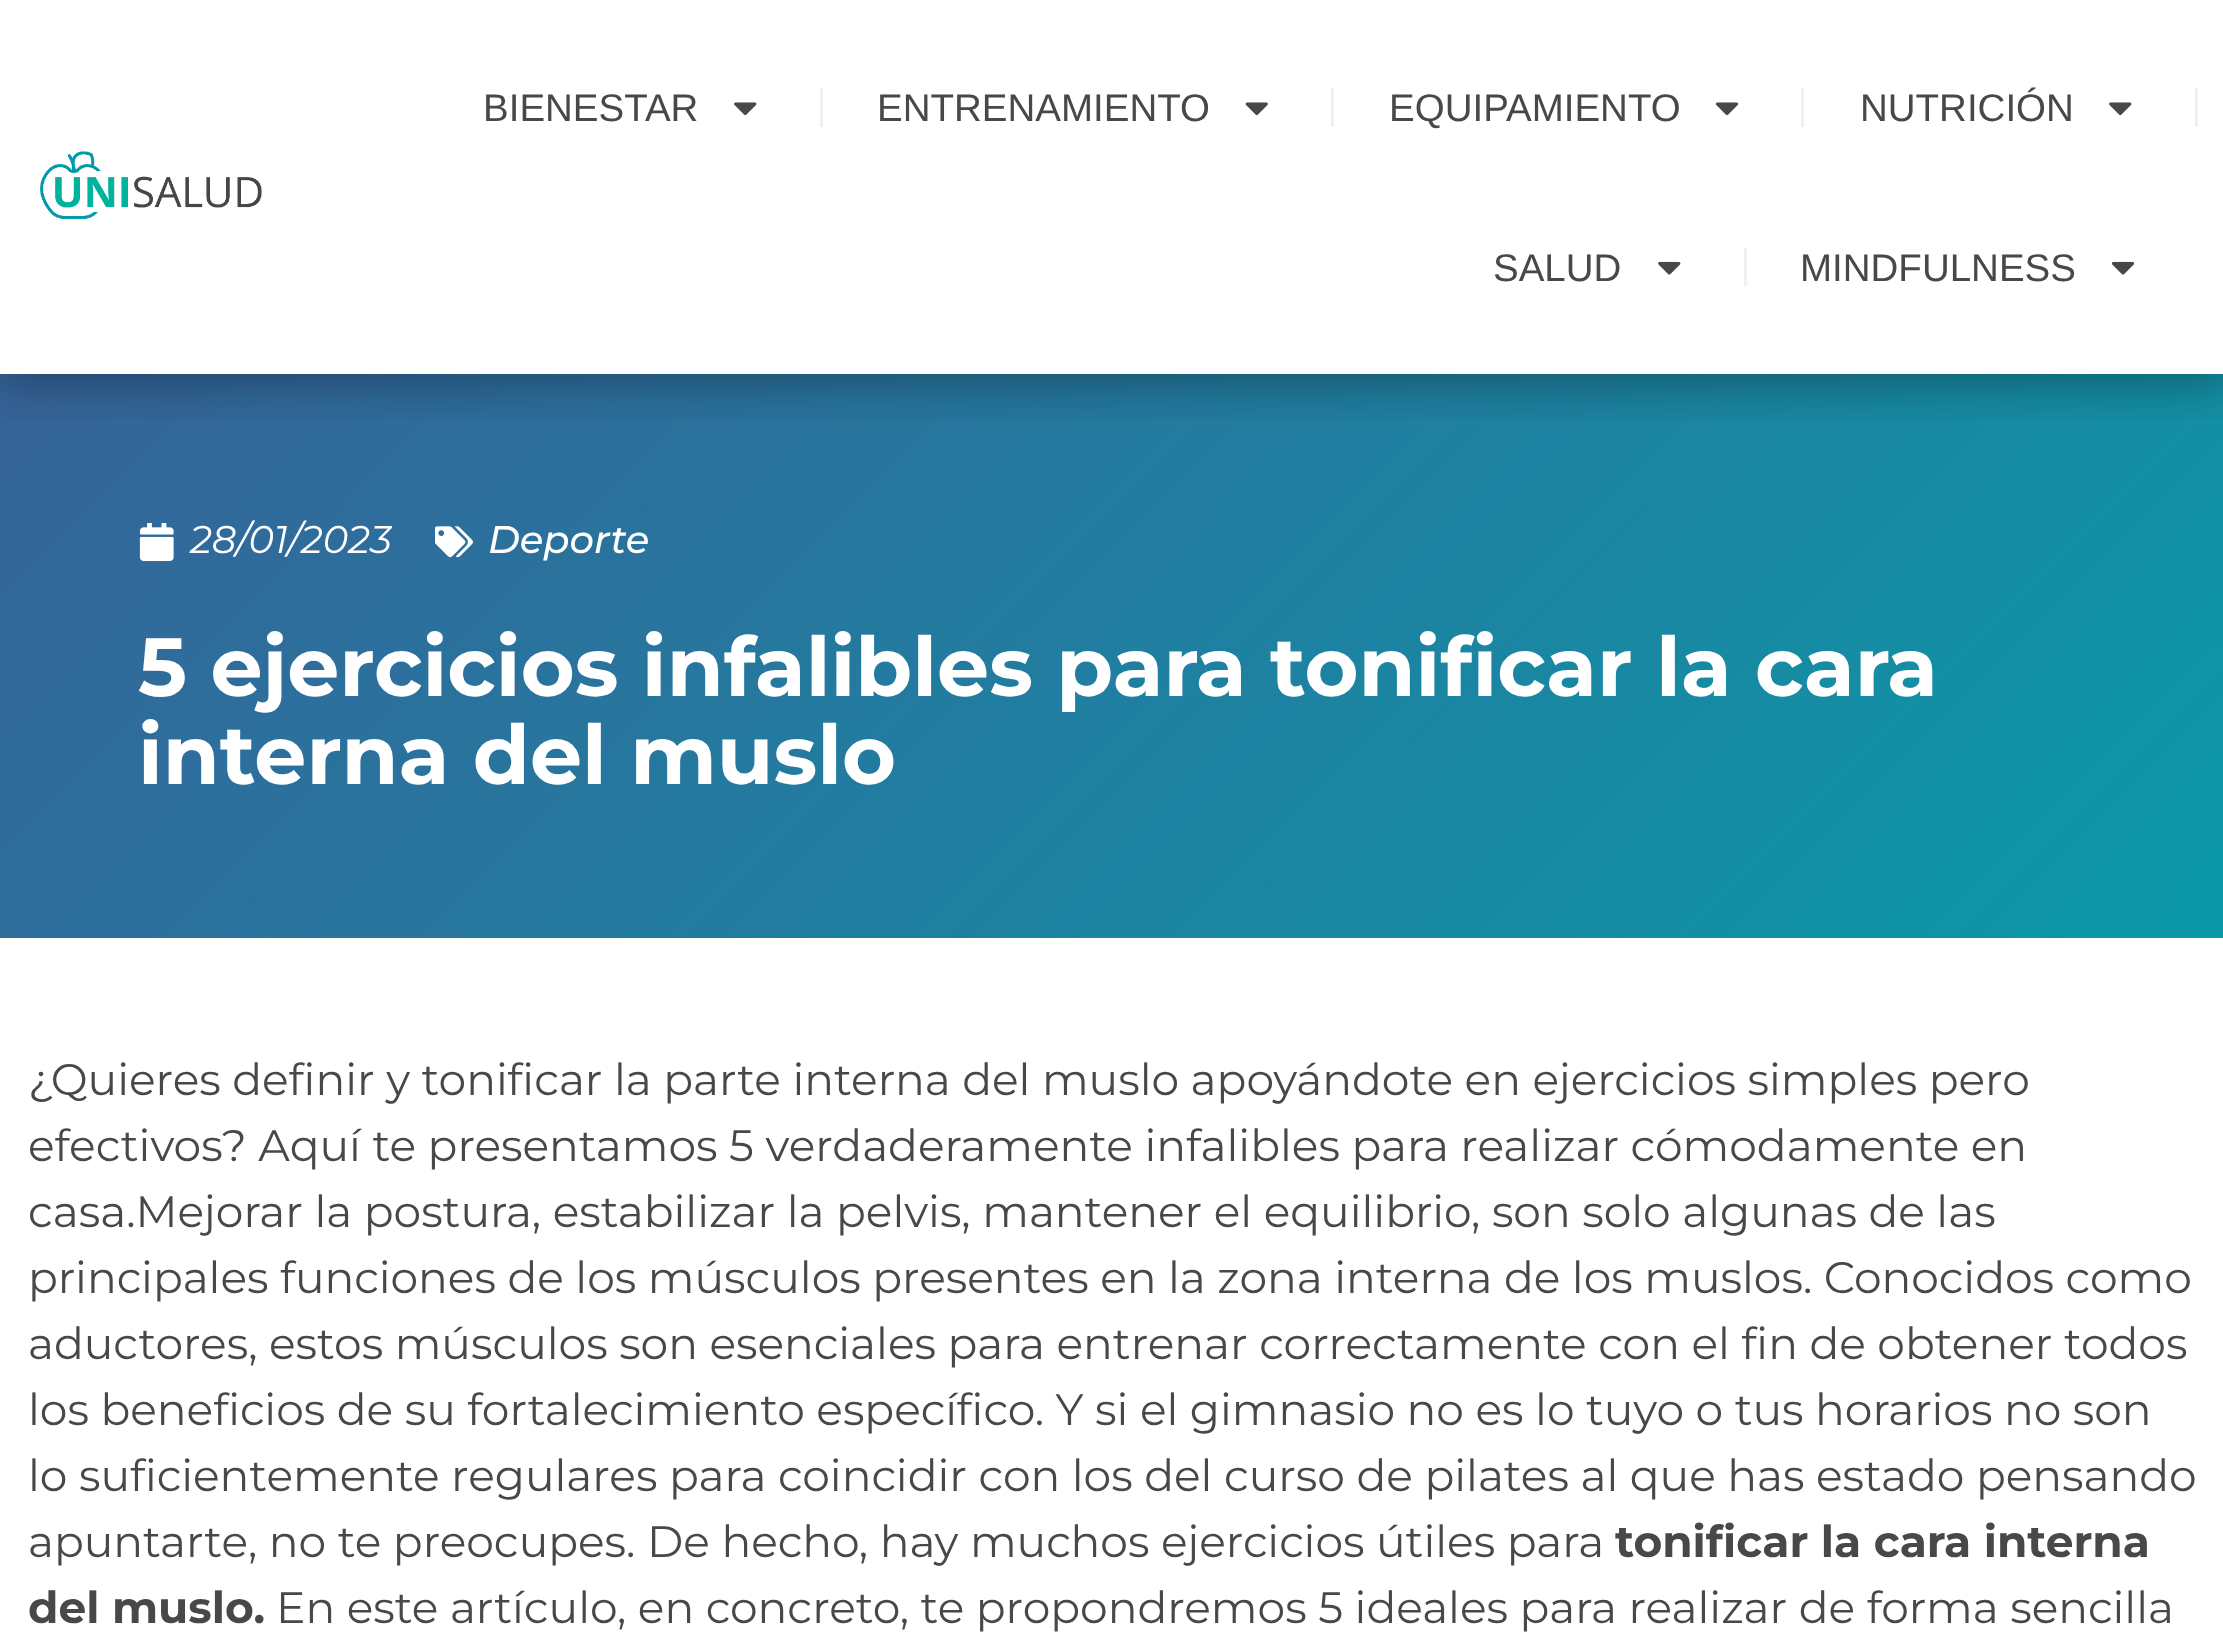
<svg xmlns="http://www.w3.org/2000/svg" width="2223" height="1640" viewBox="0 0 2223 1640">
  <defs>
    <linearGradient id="g1" gradientUnits="userSpaceOnUse" x1="415" y1="-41" x2="1810" y2="1353"><stop offset="0" stop-color="rgb(54,99,153)"/><stop offset="1" stop-color="rgb(11,153,167)"/></linearGradient>
    <clipPath id="clip1"><rect x="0" y="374" width="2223" height="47"/></clipPath>
  </defs>
  <rect width="100%" height="100%" fill="rgb(255,255,255)"/>
  <rect x="0" y="374" width="2223" height="564" fill="url(#g1)"/>
  <g clip-path="url(#clip1)">
    <rect x="-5" y="-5" width="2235" height="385" fill="rgba(0,0,0,0.36)" filter="blur(26px)"/>
  </g>
  <image x="40" y="151" width="222" height="69" href="pic1.png"/>
  <text x="483" y="121" font-family="Liberation Sans" font-size="38.5" fill="rgb(72,72,72)">BIENESTAR</text>
  <image x="734" y="102" width="23" height="14" href="pic2.png"/>
  <rect x="820" y="88" width="3" height="39" fill="rgb(240,240,240)"/>
  <text x="877" y="121" font-family="Liberation Sans" font-size="38.5" fill="rgb(72,72,72)">ENTRENAMIENTO</text>
  <image x="1245" y="102" width="23" height="14" href="pic3.png"/>
  <rect x="1331" y="88" width="3" height="39" fill="rgb(240,240,240)"/>
  <text x="1389" y="121" font-family="Liberation Sans" font-size="38.5" fill="rgb(72,72,72)">EQUIPAMIENTO</text>
  <image x="1715" y="102" width="24" height="14" href="pic4.png"/>
  <rect x="1801" y="88" width="3" height="39" fill="rgb(240,240,240)"/>
  <text x="1860" y="121" font-family="Liberation Sans" font-size="38.5" fill="rgb(72,72,72)">NUTRICIÓN</text>
  <image x="2109" y="102" width="23" height="14" href="pic2.png"/>
  <rect x="2195" y="88" width="3" height="39" fill="rgb(240,240,240)"/>
  <text x="1493" y="281" font-family="Liberation Sans" font-size="38.5" fill="rgb(72,72,72)">SALUD</text>
  <image x="1658" y="261" width="23" height="14" href="pic5.png"/>
  <rect x="1744" y="248" width="3" height="38" fill="rgb(240,240,240)"/>
  <text x="1800" y="281" font-family="Liberation Sans" font-size="38.5" fill="rgb(72,72,72)">MINDFULNESS</text>
  <image x="2111" y="261" width="24" height="14" href="pic6.png"/>
  <image x="139" y="523" width="35" height="38" href="pic7.png"/>
  <text x="190" y="553" font-family="Montserrat" font-size="38.5" font-style="italic" fill="rgb(255,255,255)">28/01/2023</text>
  <image x="435" y="526" width="38" height="32" href="pic8.png"/>
  <text x="488" y="553" font-family="Montserrat" font-size="38.5" font-weight="500" font-style="italic" fill="rgb(255,255,255)">Deporte</text>
  <g font-family="Montserrat" font-size="82.5" font-weight="bold" fill="rgb(255,255,255)">
    <text>
      <tspan x="138" y="696">5 ejercicios infalibles para tonificar la cara</tspan>
      <tspan x="138" y="784">interna del muslo</tspan>
    </text>
  </g>
  <g font-family="Montserrat" font-size="44" fill="rgb(72,72,72)">
    <text>
      <tspan x="28" y="1095">¿Quieres definir y tonificar la parte interna del muslo apoyándote en ejercicios simples pero</tspan>
      <tspan x="28" y="1161">efectivos? Aquí te presentamos 5 verdaderamente infalibles para realizar cómodamente en</tspan>
      <tspan x="28" y="1227">casa.Mejorar la postura, estabilizar la pelvis, mantener el equilibrio, son solo algunas de las</tspan>
      <tspan x="28" y="1293">principales funciones de los músculos presentes en la zona interna de los muslos. Conocidos como</tspan>
      <tspan x="28" y="1359">aductores, estos músculos son esenciales para entrenar correctamente con el fin de obtener todos</tspan>
      <tspan x="28" y="1425">los beneficios de su fortalecimiento específico. Y si el gimnasio no es lo tuyo o tus horarios no son</tspan>
      <tspan x="28" y="1491">lo suficientemente regulares para coincidir con los del curso de pilates al que has estado pensando</tspan>
      <tspan x="28" y="1557">apuntarte, no te preocupes. De hecho, hay muchos ejercicios útiles para</tspan>
    </text>
  </g>
  <g font-family="Montserrat" font-size="44" font-weight="bold" fill="rgb(72,72,72)">
    <text x="1615" y="1557">tonificar la cara interna</text>
    <text x="28" y="1623">del muslo.</text>
  </g>
  <text x="276" y="1623" font-family="Montserrat" font-size="44" fill="rgb(72,72,72)">En este artículo, en concreto, te propondremos 5 ideales para realizar de forma sencilla</text>
</svg>
